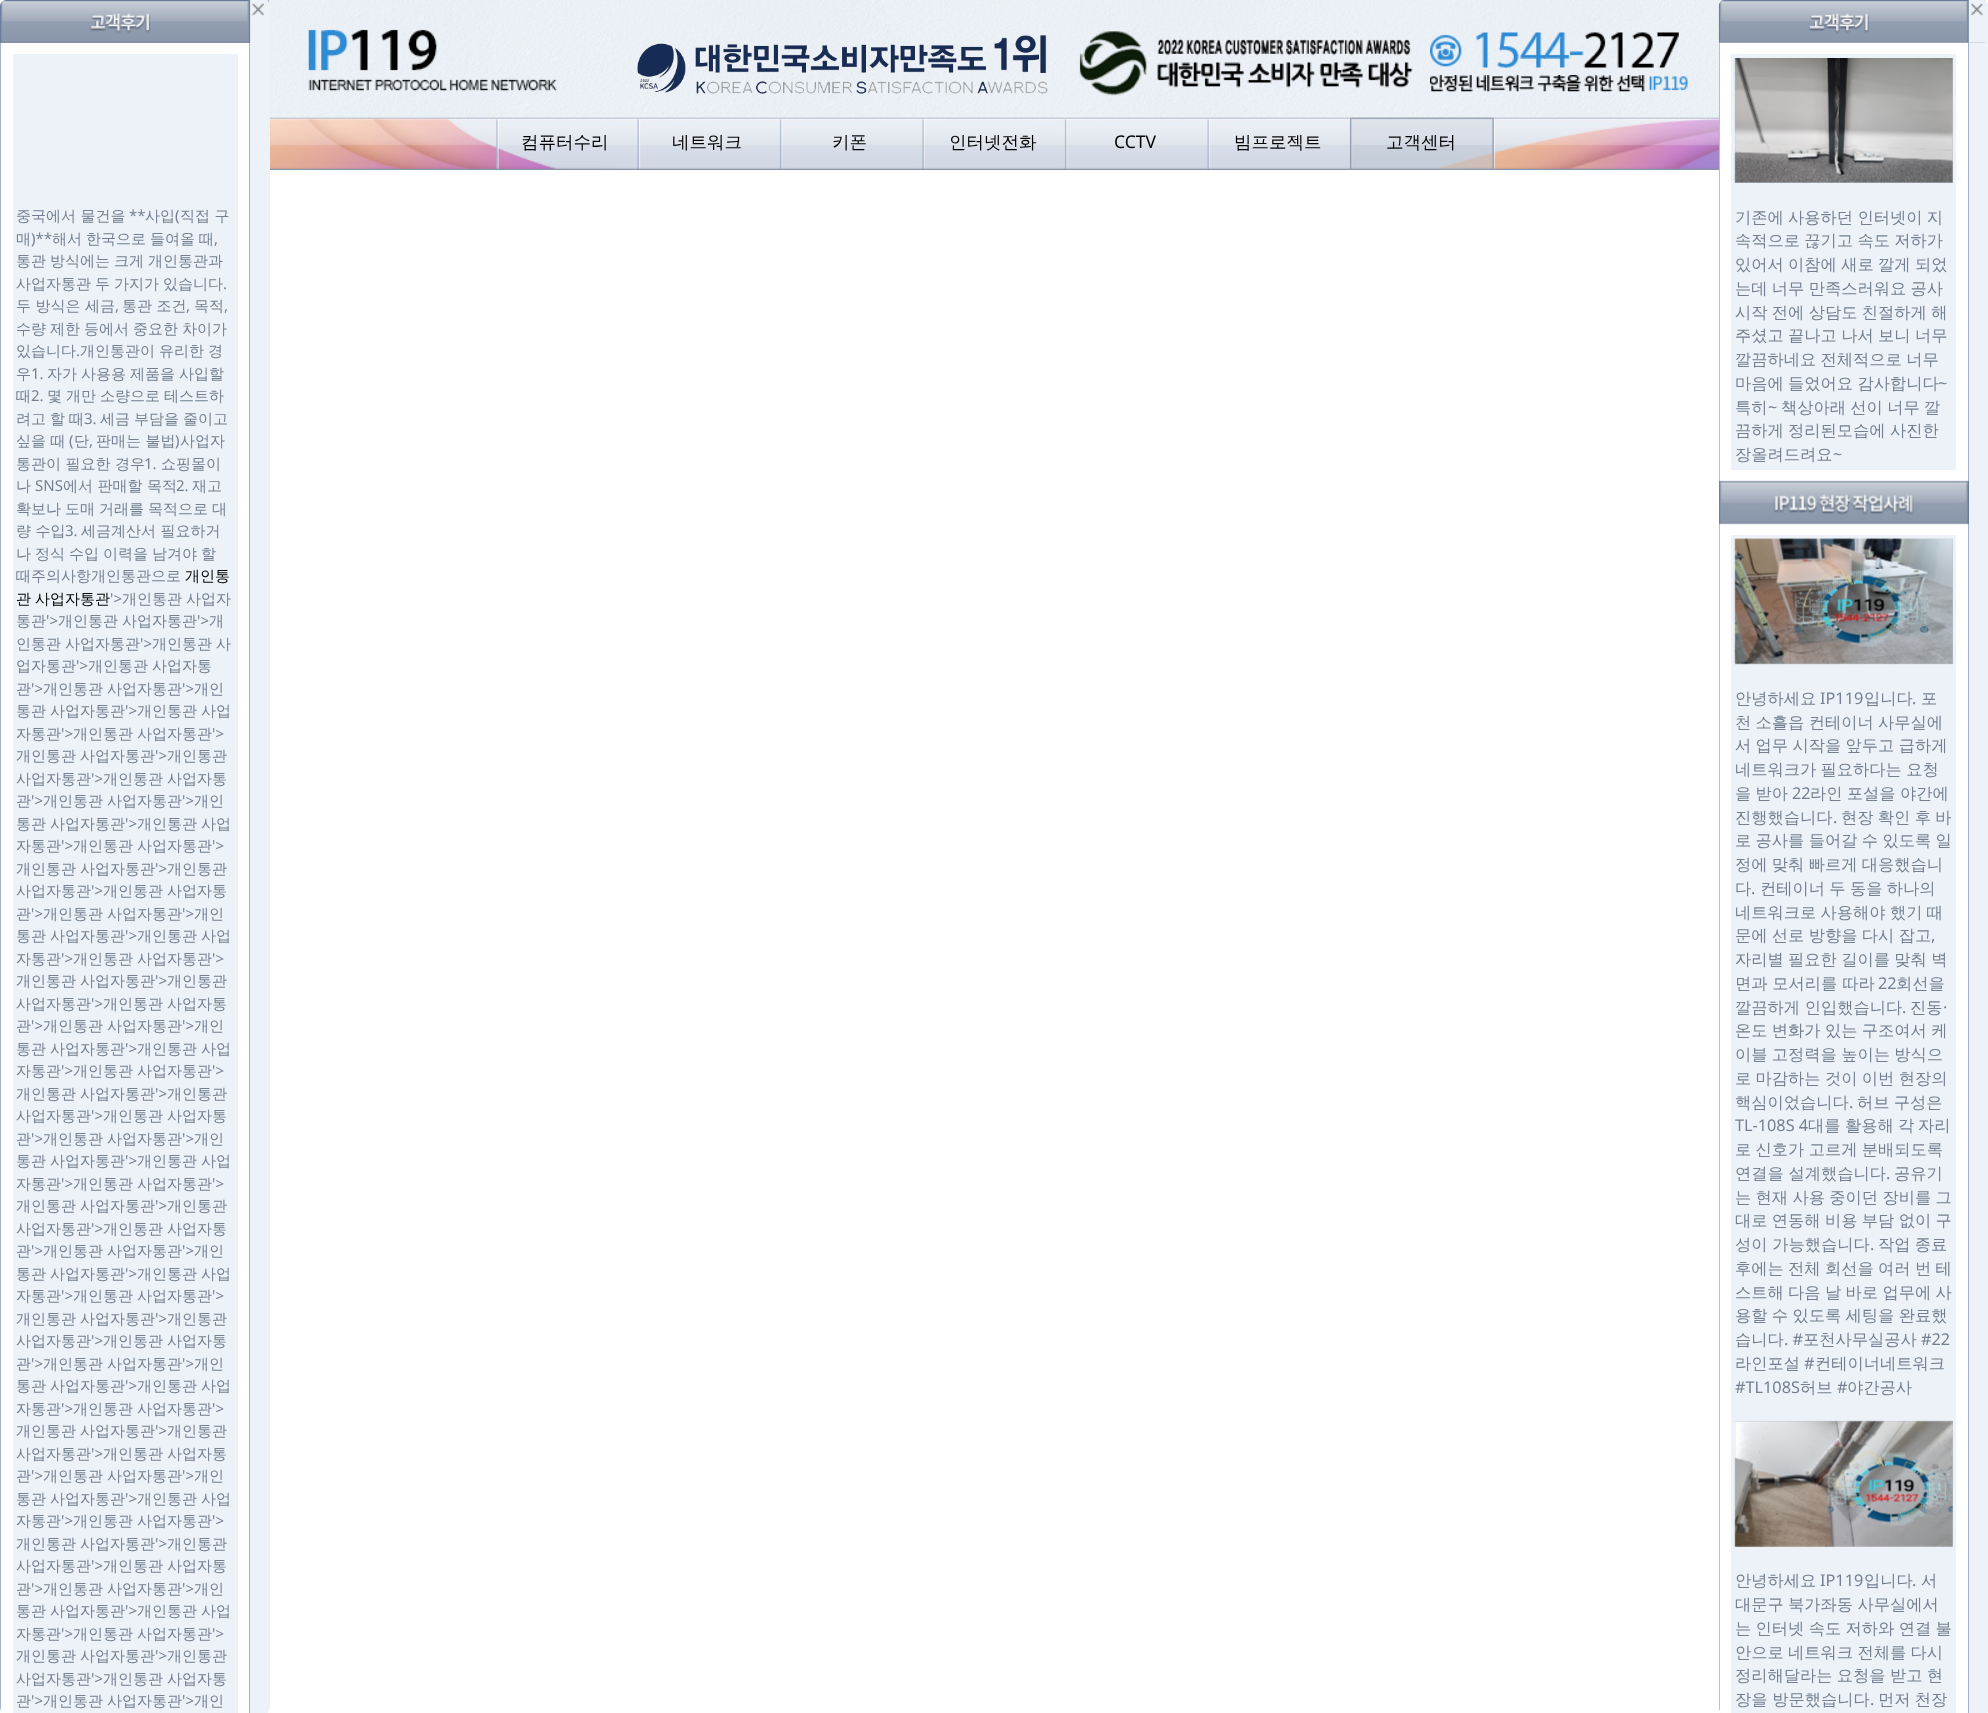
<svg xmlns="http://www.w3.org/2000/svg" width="1988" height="1713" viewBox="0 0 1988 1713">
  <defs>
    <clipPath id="clip1"><rect x="0" y="0" width="270" height="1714" rx="6"/></clipPath>
    <clipPath id="clip2"><rect x="1719" y="0" width="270" height="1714" rx="6"/></clipPath>
  </defs>
  <rect width="100%" height="100%" fill="rgb(255,255,255)"/>
  <image x="267" y="0" width="1456" height="118" href="pic3.png"/>
  <image x="1430" y="32" width="249" height="36" href="pic1.png"/>
  <image x="1430" y="75" width="258" height="17" href="pic2.png"/>
  <image x="637" y="35" width="411" height="59" href="pic4.png"/>
  <image x="1079" y="31" width="334" height="65" href="pic5.png"/>
  <image x="270" y="117" width="1449" height="53" href="pic6.png"/>
  <g font-family="WenQuanYi Zen Hei" font-size="17.5" font-weight="500" fill="rgb(0,0,0)">
    <text x="521" y="148">컴퓨터수리</text>
    <text x="672" y="148">네트워크</text>
    <text x="832" y="148">키폰</text>
    <text x="949" y="148">인터넷전화</text>
  </g>
  <text x="1114" y="148" font-family="Noto Sans" font-size="17.5" fill="rgb(0,0,0)">CCTV</text>
  <g font-family="WenQuanYi Zen Hei" font-size="17.5" font-weight="500" fill="rgb(0,0,0)">
    <text x="1234" y="148">빔프로젝트</text>
    <text x="1386" y="148">고객센터</text>
  </g>
  <rect x="0" y="0" width="270" height="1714" rx="6" fill="rgb(236,242,247)"/>
  <image x="0" y="0" width="266" height="43" href="pic7.png"/>
  <image x="0" y="43" width="250" height="1670" href="pic8.png"/>
  <g clip-path="url(#clip1)">
    <rect x="1" y="43" width="248" height="1670" fill="rgb(255,255,255)"/>
  </g>
  <rect x="13" y="54" width="225" height="1659" fill="rgb(236,242,247)"/>
  <text x="16" y="221" font-family="WenQuanYi Zen Hei" font-size="15" font-weight="500" fill="rgb(116,128,145)">중국에서 물건을</text>
  <text x="129" y="221" font-family="Noto Sans" font-size="15" fill="rgb(116,128,145)">**</text>
  <text x="145" y="221" font-family="WenQuanYi Zen Hei" font-size="15" font-weight="500" fill="rgb(116,128,145)">사입</text>
  <text x="175" y="221" font-family="Noto Sans" font-size="15" fill="rgb(116,128,145)">(</text>
  <g font-family="WenQuanYi Zen Hei" font-size="15" font-weight="500" fill="rgb(116,128,145)">
    <text x="180" y="221">직접 구</text>
    <text x="16" y="244">매</text>
  </g>
  <text x="31" y="244" font-family="Noto Sans" font-size="15" fill="rgb(116,128,145)">)**</text>
  <text x="52" y="244" word-spacing="-0.5" font-family="WenQuanYi Zen Hei" font-size="15" font-weight="500" fill="rgb(116,128,145)">해서 한국으로 들여올 때</text>
  <text x="214" y="244" font-family="Noto Sans" font-size="15" fill="rgb(116,128,145)">,</text>
  <g font-family="WenQuanYi Zen Hei" font-size="15" font-weight="500" fill="rgb(116,128,145)">
    <text>
      <tspan x="16" y="266" word-spacing="-0.5">통관 방식에는 크게 개인통관과</tspan>
      <tspan x="16" y="289" word-spacing="-0.5">사업자통관 두 가지가 있습니다</tspan>
    </text>
  </g>
  <text x="223" y="289" font-family="Noto Sans" font-size="15" fill="rgb(116,128,145)">.</text>
  <text x="16" y="311" font-family="WenQuanYi Zen Hei" font-size="15" font-weight="500" fill="rgb(116,128,145)">두 방식은 세금</text>
  <text x="115" y="311" font-family="Noto Sans" font-size="15" fill="rgb(116,128,145)">,</text>
  <text x="122" y="311" font-family="WenQuanYi Zen Hei" font-size="15" font-weight="500" fill="rgb(116,128,145)">통관 조건</text>
  <text x="186" y="311" font-family="Noto Sans" font-size="15" fill="rgb(116,128,145)">,</text>
  <text x="194" y="311" font-family="WenQuanYi Zen Hei" font-size="15" font-weight="500" fill="rgb(116,128,145)">목적</text>
  <text x="224" y="311" font-family="Noto Sans" font-size="15" fill="rgb(116,128,145)">,</text>
  <g font-family="WenQuanYi Zen Hei" font-size="15" font-weight="500" fill="rgb(116,128,145)">
    <text>
      <tspan x="16" y="334" word-spacing="-0.5">수량 제한 등에서 중요한 차이가</tspan>
      <tspan x="16" y="356">있습니다</tspan>
    </text>
  </g>
  <text x="76" y="356" font-family="Noto Sans" font-size="15" fill="rgb(116,128,145)">.</text>
  <g font-family="WenQuanYi Zen Hei" font-size="15" font-weight="500" fill="rgb(116,128,145)">
    <text x="80" y="356" word-spacing="-0.5">개인통관이 유리한 경</text>
    <text x="16" y="379">우</text>
  </g>
  <text x="31" y="379" font-family="Noto Sans" font-size="15" fill="rgb(116,128,145)">1.</text>
  <g font-family="WenQuanYi Zen Hei" font-size="15" font-weight="500" fill="rgb(116,128,145)">
    <text x="47" y="379" word-spacing="-0.5">자가 사용용 제품을 사입할</text>
    <text x="16" y="401">때</text>
  </g>
  <text x="31" y="401" font-family="Noto Sans" font-size="15" fill="rgb(116,128,145)">2.</text>
  <g font-family="WenQuanYi Zen Hei" font-size="15" font-weight="500" fill="rgb(116,128,145)">
    <text x="47" y="401" word-spacing="-0.5">몇 개만 소량으로 테스트하</text>
    <text x="16" y="424" word-spacing="-0.5">려고 할 때</text>
  </g>
  <text x="84" y="424" font-family="Noto Sans" font-size="15" fill="rgb(116,128,145)">3.</text>
  <g font-family="WenQuanYi Zen Hei" font-size="15" font-weight="500" fill="rgb(116,128,145)">
    <text x="100" y="424" word-spacing="-0.5">세금 부담을 줄이고</text>
    <text x="16" y="446">싶을 때</text>
  </g>
  <text x="69" y="446" font-family="Noto Sans" font-size="15" fill="rgb(116,128,145)">(</text>
  <text x="74" y="446" font-family="WenQuanYi Zen Hei" font-size="15" font-weight="500" fill="rgb(116,128,145)">단</text>
  <text x="89" y="446" font-family="Noto Sans" font-size="15" fill="rgb(116,128,145)">,</text>
  <text x="96" y="446" font-family="WenQuanYi Zen Hei" font-size="15" font-weight="500" fill="rgb(116,128,145)">판매는 불법</text>
  <text x="175" y="446" font-family="Noto Sans" font-size="15" fill="rgb(116,128,145)">)</text>
  <g font-family="WenQuanYi Zen Hei" font-size="15" font-weight="500" fill="rgb(116,128,145)">
    <text x="180" y="446">사업자</text>
    <text x="16" y="469">통관이 필요한 경우</text>
  </g>
  <text x="144" y="469" font-family="Noto Sans" font-size="15" fill="rgb(116,128,145)">1.</text>
  <g font-family="WenQuanYi Zen Hei" font-size="15" font-weight="500" fill="rgb(116,128,145)">
    <text x="161" y="469">쇼핑몰이</text>
    <text x="16" y="491">나</text>
  </g>
  <text x="35" y="491" font-family="Noto Sans" font-size="15" fill="rgb(116,128,145)">SNS</text>
  <text x="63" y="491" font-family="WenQuanYi Zen Hei" font-size="15" font-weight="500" fill="rgb(116,128,145)">에서 판매할 목적</text>
  <text x="176" y="491" font-family="Noto Sans" font-size="15" fill="rgb(116,128,145)">2.</text>
  <g font-family="WenQuanYi Zen Hei" font-size="15" font-weight="500" fill="rgb(116,128,145)">
    <text x="192" y="491">재고</text>
    <text>
      <tspan x="16" y="514" word-spacing="-0.5">확보나 도매 거래를 목적으로 대</tspan>
      <tspan x="16" y="536">량 수입</tspan>
    </text>
  </g>
  <text x="65" y="536" font-family="Noto Sans" font-size="15" fill="rgb(116,128,145)">3.</text>
  <g font-family="WenQuanYi Zen Hei" font-size="15" font-weight="500" fill="rgb(116,128,145)">
    <text x="81" y="536">세금계산서 필요하거</text>
    <text>
      <tspan x="16" y="559" word-spacing="-0.5">나 정식 수입 이력을 남겨야 할</tspan>
      <tspan x="16" y="581">때주의사항개인통관으로</tspan>
    </text>
  </g>
  <g font-family="WenQuanYi Zen Hei" font-size="15" font-weight="500" fill="rgb(0,0,0)">
    <text x="185" y="581">개인통</text>
    <text x="16" y="604" word-spacing="-0.5">관 사업자통관</text>
  </g>
  <text x="110" y="604" font-family="Noto Sans" font-size="15" fill="rgb(116,128,145)">'&gt;</text>
  <g font-family="WenQuanYi Zen Hei" font-size="15" font-weight="500" fill="rgb(116,128,145)">
    <text x="122" y="604" word-spacing="-0.5">개인통관 사업자</text>
    <text x="16" y="626">통관</text>
  </g>
  <text x="46" y="626" font-family="Noto Sans" font-size="15" fill="rgb(116,128,145)">'&gt;</text>
  <text x="58" y="626" word-spacing="-0.5" font-family="WenQuanYi Zen Hei" font-size="15" font-weight="500" fill="rgb(116,128,145)">개인통관 사업자통관</text>
  <text x="197" y="626" font-family="Noto Sans" font-size="15" fill="rgb(116,128,145)">'&gt;</text>
  <g font-family="WenQuanYi Zen Hei" font-size="15" font-weight="500" fill="rgb(116,128,145)">
    <text x="209" y="626">개</text>
    <text x="16" y="649" word-spacing="-0.5">인통관 사업자통관</text>
  </g>
  <text x="140" y="649" font-family="Noto Sans" font-size="15" fill="rgb(116,128,145)">'&gt;</text>
  <g font-family="WenQuanYi Zen Hei" font-size="15" font-weight="500" fill="rgb(116,128,145)">
    <text x="152" y="649" word-spacing="-0.5">개인통관 사</text>
    <text x="16" y="671">업자통관</text>
  </g>
  <text x="76" y="671" font-family="Noto Sans" font-size="15" fill="rgb(116,128,145)">'&gt;</text>
  <g font-family="WenQuanYi Zen Hei" font-size="15" font-weight="500" fill="rgb(116,128,145)">
    <text x="88" y="671" word-spacing="-0.5">개인통관 사업자통</text>
    <text x="16" y="694">관</text>
  </g>
  <text x="31" y="694" font-family="Noto Sans" font-size="15" fill="rgb(116,128,145)">'&gt;</text>
  <text x="43" y="694" word-spacing="-0.5" font-family="WenQuanYi Zen Hei" font-size="15" font-weight="500" fill="rgb(116,128,145)">개인통관 사업자통관</text>
  <text x="182" y="694" font-family="Noto Sans" font-size="15" fill="rgb(116,128,145)">'&gt;</text>
  <g font-family="WenQuanYi Zen Hei" font-size="15" font-weight="500" fill="rgb(116,128,145)">
    <text x="194" y="694">개인</text>
    <text x="16" y="716" word-spacing="-0.5">통관 사업자통관</text>
  </g>
  <text x="125" y="716" font-family="Noto Sans" font-size="15" fill="rgb(116,128,145)">'&gt;</text>
  <g font-family="WenQuanYi Zen Hei" font-size="15" font-weight="500" fill="rgb(116,128,145)">
    <text x="137" y="716" word-spacing="-0.5">개인통관 사업</text>
    <text x="16" y="739">자통관</text>
  </g>
  <text x="61" y="739" font-family="Noto Sans" font-size="15" fill="rgb(116,128,145)">'&gt;</text>
  <text x="73" y="739" word-spacing="-0.5" font-family="WenQuanYi Zen Hei" font-size="15" font-weight="500" fill="rgb(116,128,145)">개인통관 사업자통관</text>
  <text x="212" y="739" font-family="Noto Sans" font-size="15" fill="rgb(116,128,145)">'&gt;</text>
  <text x="16" y="761" word-spacing="-0.5" font-family="WenQuanYi Zen Hei" font-size="15" font-weight="500" fill="rgb(116,128,145)">개인통관 사업자통관</text>
  <text x="155" y="761" font-family="Noto Sans" font-size="15" fill="rgb(116,128,145)">'&gt;</text>
  <g font-family="WenQuanYi Zen Hei" font-size="15" font-weight="500" fill="rgb(116,128,145)">
    <text x="167" y="761">개인통관</text>
    <text x="16" y="784">사업자통관</text>
  </g>
  <text x="91" y="784" font-family="Noto Sans" font-size="15" fill="rgb(116,128,145)">'&gt;</text>
  <g font-family="WenQuanYi Zen Hei" font-size="15" font-weight="500" fill="rgb(116,128,145)">
    <text x="103" y="784" word-spacing="-0.5">개인통관 사업자통</text>
    <text x="16" y="806">관</text>
  </g>
  <text x="31" y="806" font-family="Noto Sans" font-size="15" fill="rgb(116,128,145)">'&gt;</text>
  <text x="43" y="806" word-spacing="-0.5" font-family="WenQuanYi Zen Hei" font-size="15" font-weight="500" fill="rgb(116,128,145)">개인통관 사업자통관</text>
  <text x="182" y="806" font-family="Noto Sans" font-size="15" fill="rgb(116,128,145)">'&gt;</text>
  <g font-family="WenQuanYi Zen Hei" font-size="15" font-weight="500" fill="rgb(116,128,145)">
    <text x="194" y="806">개인</text>
    <text x="16" y="829" word-spacing="-0.5">통관 사업자통관</text>
  </g>
  <text x="125" y="829" font-family="Noto Sans" font-size="15" fill="rgb(116,128,145)">'&gt;</text>
  <g font-family="WenQuanYi Zen Hei" font-size="15" font-weight="500" fill="rgb(116,128,145)">
    <text x="137" y="829" word-spacing="-0.5">개인통관 사업</text>
    <text x="16" y="851">자통관</text>
  </g>
  <text x="61" y="851" font-family="Noto Sans" font-size="15" fill="rgb(116,128,145)">'&gt;</text>
  <text x="73" y="851" word-spacing="-0.5" font-family="WenQuanYi Zen Hei" font-size="15" font-weight="500" fill="rgb(116,128,145)">개인통관 사업자통관</text>
  <text x="212" y="851" font-family="Noto Sans" font-size="15" fill="rgb(116,128,145)">'&gt;</text>
  <text x="16" y="874" word-spacing="-0.5" font-family="WenQuanYi Zen Hei" font-size="15" font-weight="500" fill="rgb(116,128,145)">개인통관 사업자통관</text>
  <text x="155" y="874" font-family="Noto Sans" font-size="15" fill="rgb(116,128,145)">'&gt;</text>
  <g font-family="WenQuanYi Zen Hei" font-size="15" font-weight="500" fill="rgb(116,128,145)">
    <text x="167" y="874">개인통관</text>
    <text x="16" y="896">사업자통관</text>
  </g>
  <text x="91" y="896" font-family="Noto Sans" font-size="15" fill="rgb(116,128,145)">'&gt;</text>
  <g font-family="WenQuanYi Zen Hei" font-size="15" font-weight="500" fill="rgb(116,128,145)">
    <text x="103" y="896" word-spacing="-0.5">개인통관 사업자통</text>
    <text x="16" y="919">관</text>
  </g>
  <text x="31" y="919" font-family="Noto Sans" font-size="15" fill="rgb(116,128,145)">'&gt;</text>
  <text x="43" y="919" word-spacing="-0.5" font-family="WenQuanYi Zen Hei" font-size="15" font-weight="500" fill="rgb(116,128,145)">개인통관 사업자통관</text>
  <text x="182" y="919" font-family="Noto Sans" font-size="15" fill="rgb(116,128,145)">'&gt;</text>
  <g font-family="WenQuanYi Zen Hei" font-size="15" font-weight="500" fill="rgb(116,128,145)">
    <text x="194" y="919">개인</text>
    <text x="16" y="941" word-spacing="-0.5">통관 사업자통관</text>
  </g>
  <text x="125" y="941" font-family="Noto Sans" font-size="15" fill="rgb(116,128,145)">'&gt;</text>
  <g font-family="WenQuanYi Zen Hei" font-size="15" font-weight="500" fill="rgb(116,128,145)">
    <text x="137" y="941" word-spacing="-0.5">개인통관 사업</text>
    <text x="16" y="964">자통관</text>
  </g>
  <text x="61" y="964" font-family="Noto Sans" font-size="15" fill="rgb(116,128,145)">'&gt;</text>
  <text x="73" y="964" word-spacing="-0.5" font-family="WenQuanYi Zen Hei" font-size="15" font-weight="500" fill="rgb(116,128,145)">개인통관 사업자통관</text>
  <text x="212" y="964" font-family="Noto Sans" font-size="15" fill="rgb(116,128,145)">'&gt;</text>
  <text x="16" y="986" word-spacing="-0.5" font-family="WenQuanYi Zen Hei" font-size="15" font-weight="500" fill="rgb(116,128,145)">개인통관 사업자통관</text>
  <text x="155" y="986" font-family="Noto Sans" font-size="15" fill="rgb(116,128,145)">'&gt;</text>
  <g font-family="WenQuanYi Zen Hei" font-size="15" font-weight="500" fill="rgb(116,128,145)">
    <text x="167" y="986">개인통관</text>
    <text x="16" y="1009">사업자통관</text>
  </g>
  <text x="91" y="1009" font-family="Noto Sans" font-size="15" fill="rgb(116,128,145)">'&gt;</text>
  <g font-family="WenQuanYi Zen Hei" font-size="15" font-weight="500" fill="rgb(116,128,145)">
    <text x="103" y="1009" word-spacing="-0.5">개인통관 사업자통</text>
    <text x="16" y="1031">관</text>
  </g>
  <text x="31" y="1031" font-family="Noto Sans" font-size="15" fill="rgb(116,128,145)">'&gt;</text>
  <text x="43" y="1031" word-spacing="-0.5" font-family="WenQuanYi Zen Hei" font-size="15" font-weight="500" fill="rgb(116,128,145)">개인통관 사업자통관</text>
  <text x="182" y="1031" font-family="Noto Sans" font-size="15" fill="rgb(116,128,145)">'&gt;</text>
  <g font-family="WenQuanYi Zen Hei" font-size="15" font-weight="500" fill="rgb(116,128,145)">
    <text x="194" y="1031">개인</text>
    <text x="16" y="1054" word-spacing="-0.5">통관 사업자통관</text>
  </g>
  <text x="125" y="1054" font-family="Noto Sans" font-size="15" fill="rgb(116,128,145)">'&gt;</text>
  <g font-family="WenQuanYi Zen Hei" font-size="15" font-weight="500" fill="rgb(116,128,145)">
    <text x="137" y="1054" word-spacing="-0.5">개인통관 사업</text>
    <text x="16" y="1076">자통관</text>
  </g>
  <text x="61" y="1076" font-family="Noto Sans" font-size="15" fill="rgb(116,128,145)">'&gt;</text>
  <text x="73" y="1076" word-spacing="-0.5" font-family="WenQuanYi Zen Hei" font-size="15" font-weight="500" fill="rgb(116,128,145)">개인통관 사업자통관</text>
  <text x="212" y="1076" font-family="Noto Sans" font-size="15" fill="rgb(116,128,145)">'&gt;</text>
  <text x="16" y="1099" word-spacing="-0.5" font-family="WenQuanYi Zen Hei" font-size="15" font-weight="500" fill="rgb(116,128,145)">개인통관 사업자통관</text>
  <text x="155" y="1099" font-family="Noto Sans" font-size="15" fill="rgb(116,128,145)">'&gt;</text>
  <g font-family="WenQuanYi Zen Hei" font-size="15" font-weight="500" fill="rgb(116,128,145)">
    <text x="167" y="1099">개인통관</text>
    <text x="16" y="1121">사업자통관</text>
  </g>
  <text x="91" y="1121" font-family="Noto Sans" font-size="15" fill="rgb(116,128,145)">'&gt;</text>
  <g font-family="WenQuanYi Zen Hei" font-size="15" font-weight="500" fill="rgb(116,128,145)">
    <text x="103" y="1121" word-spacing="-0.5">개인통관 사업자통</text>
    <text x="16" y="1144">관</text>
  </g>
  <text x="31" y="1144" font-family="Noto Sans" font-size="15" fill="rgb(116,128,145)">'&gt;</text>
  <text x="43" y="1144" word-spacing="-0.5" font-family="WenQuanYi Zen Hei" font-size="15" font-weight="500" fill="rgb(116,128,145)">개인통관 사업자통관</text>
  <text x="182" y="1144" font-family="Noto Sans" font-size="15" fill="rgb(116,128,145)">'&gt;</text>
  <g font-family="WenQuanYi Zen Hei" font-size="15" font-weight="500" fill="rgb(116,128,145)">
    <text x="194" y="1144">개인</text>
    <text x="16" y="1166" word-spacing="-0.5">통관 사업자통관</text>
  </g>
  <text x="125" y="1166" font-family="Noto Sans" font-size="15" fill="rgb(116,128,145)">'&gt;</text>
  <g font-family="WenQuanYi Zen Hei" font-size="15" font-weight="500" fill="rgb(116,128,145)">
    <text x="137" y="1166" word-spacing="-0.5">개인통관 사업</text>
    <text x="16" y="1189">자통관</text>
  </g>
  <text x="61" y="1189" font-family="Noto Sans" font-size="15" fill="rgb(116,128,145)">'&gt;</text>
  <text x="73" y="1189" word-spacing="-0.5" font-family="WenQuanYi Zen Hei" font-size="15" font-weight="500" fill="rgb(116,128,145)">개인통관 사업자통관</text>
  <text x="212" y="1189" font-family="Noto Sans" font-size="15" fill="rgb(116,128,145)">'&gt;</text>
  <text x="16" y="1211" word-spacing="-0.5" font-family="WenQuanYi Zen Hei" font-size="15" font-weight="500" fill="rgb(116,128,145)">개인통관 사업자통관</text>
  <text x="155" y="1211" font-family="Noto Sans" font-size="15" fill="rgb(116,128,145)">'&gt;</text>
  <g font-family="WenQuanYi Zen Hei" font-size="15" font-weight="500" fill="rgb(116,128,145)">
    <text x="167" y="1211">개인통관</text>
    <text x="16" y="1234">사업자통관</text>
  </g>
  <text x="91" y="1234" font-family="Noto Sans" font-size="15" fill="rgb(116,128,145)">'&gt;</text>
  <g font-family="WenQuanYi Zen Hei" font-size="15" font-weight="500" fill="rgb(116,128,145)">
    <text x="103" y="1234" word-spacing="-0.5">개인통관 사업자통</text>
    <text x="16" y="1256">관</text>
  </g>
  <text x="31" y="1256" font-family="Noto Sans" font-size="15" fill="rgb(116,128,145)">'&gt;</text>
  <text x="43" y="1256" word-spacing="-0.5" font-family="WenQuanYi Zen Hei" font-size="15" font-weight="500" fill="rgb(116,128,145)">개인통관 사업자통관</text>
  <text x="182" y="1256" font-family="Noto Sans" font-size="15" fill="rgb(116,128,145)">'&gt;</text>
  <g font-family="WenQuanYi Zen Hei" font-size="15" font-weight="500" fill="rgb(116,128,145)">
    <text x="194" y="1256">개인</text>
    <text x="16" y="1279" word-spacing="-0.5">통관 사업자통관</text>
  </g>
  <text x="125" y="1279" font-family="Noto Sans" font-size="15" fill="rgb(116,128,145)">'&gt;</text>
  <g font-family="WenQuanYi Zen Hei" font-size="15" font-weight="500" fill="rgb(116,128,145)">
    <text x="137" y="1279" word-spacing="-0.5">개인통관 사업</text>
    <text x="16" y="1301">자통관</text>
  </g>
  <text x="61" y="1301" font-family="Noto Sans" font-size="15" fill="rgb(116,128,145)">'&gt;</text>
  <text x="73" y="1301" word-spacing="-0.5" font-family="WenQuanYi Zen Hei" font-size="15" font-weight="500" fill="rgb(116,128,145)">개인통관 사업자통관</text>
  <text x="212" y="1301" font-family="Noto Sans" font-size="15" fill="rgb(116,128,145)">'&gt;</text>
  <text x="16" y="1324" word-spacing="-0.5" font-family="WenQuanYi Zen Hei" font-size="15" font-weight="500" fill="rgb(116,128,145)">개인통관 사업자통관</text>
  <text x="155" y="1324" font-family="Noto Sans" font-size="15" fill="rgb(116,128,145)">'&gt;</text>
  <g font-family="WenQuanYi Zen Hei" font-size="15" font-weight="500" fill="rgb(116,128,145)">
    <text x="167" y="1324">개인통관</text>
    <text x="16" y="1346">사업자통관</text>
  </g>
  <text x="91" y="1346" font-family="Noto Sans" font-size="15" fill="rgb(116,128,145)">'&gt;</text>
  <g font-family="WenQuanYi Zen Hei" font-size="15" font-weight="500" fill="rgb(116,128,145)">
    <text x="103" y="1346" word-spacing="-0.5">개인통관 사업자통</text>
    <text x="16" y="1369">관</text>
  </g>
  <text x="31" y="1369" font-family="Noto Sans" font-size="15" fill="rgb(116,128,145)">'&gt;</text>
  <text x="43" y="1369" word-spacing="-0.5" font-family="WenQuanYi Zen Hei" font-size="15" font-weight="500" fill="rgb(116,128,145)">개인통관 사업자통관</text>
  <text x="182" y="1369" font-family="Noto Sans" font-size="15" fill="rgb(116,128,145)">'&gt;</text>
  <g font-family="WenQuanYi Zen Hei" font-size="15" font-weight="500" fill="rgb(116,128,145)">
    <text x="194" y="1369">개인</text>
    <text x="16" y="1391" word-spacing="-0.5">통관 사업자통관</text>
  </g>
  <text x="125" y="1391" font-family="Noto Sans" font-size="15" fill="rgb(116,128,145)">'&gt;</text>
  <g font-family="WenQuanYi Zen Hei" font-size="15" font-weight="500" fill="rgb(116,128,145)">
    <text x="137" y="1391" word-spacing="-0.5">개인통관 사업</text>
    <text x="16" y="1414">자통관</text>
  </g>
  <text x="61" y="1414" font-family="Noto Sans" font-size="15" fill="rgb(116,128,145)">'&gt;</text>
  <text x="73" y="1414" word-spacing="-0.5" font-family="WenQuanYi Zen Hei" font-size="15" font-weight="500" fill="rgb(116,128,145)">개인통관 사업자통관</text>
  <text x="212" y="1414" font-family="Noto Sans" font-size="15" fill="rgb(116,128,145)">'&gt;</text>
  <text x="16" y="1436" word-spacing="-0.5" font-family="WenQuanYi Zen Hei" font-size="15" font-weight="500" fill="rgb(116,128,145)">개인통관 사업자통관</text>
  <text x="155" y="1436" font-family="Noto Sans" font-size="15" fill="rgb(116,128,145)">'&gt;</text>
  <g font-family="WenQuanYi Zen Hei" font-size="15" font-weight="500" fill="rgb(116,128,145)">
    <text x="167" y="1436">개인통관</text>
    <text x="16" y="1459">사업자통관</text>
  </g>
  <text x="91" y="1459" font-family="Noto Sans" font-size="15" fill="rgb(116,128,145)">'&gt;</text>
  <g font-family="WenQuanYi Zen Hei" font-size="15" font-weight="500" fill="rgb(116,128,145)">
    <text x="103" y="1459" word-spacing="-0.5">개인통관 사업자통</text>
    <text x="16" y="1481">관</text>
  </g>
  <text x="31" y="1481" font-family="Noto Sans" font-size="15" fill="rgb(116,128,145)">'&gt;</text>
  <text x="43" y="1481" word-spacing="-0.5" font-family="WenQuanYi Zen Hei" font-size="15" font-weight="500" fill="rgb(116,128,145)">개인통관 사업자통관</text>
  <text x="182" y="1481" font-family="Noto Sans" font-size="15" fill="rgb(116,128,145)">'&gt;</text>
  <g font-family="WenQuanYi Zen Hei" font-size="15" font-weight="500" fill="rgb(116,128,145)">
    <text x="194" y="1481">개인</text>
    <text x="16" y="1504" word-spacing="-0.5">통관 사업자통관</text>
  </g>
  <text x="125" y="1504" font-family="Noto Sans" font-size="15" fill="rgb(116,128,145)">'&gt;</text>
  <g font-family="WenQuanYi Zen Hei" font-size="15" font-weight="500" fill="rgb(116,128,145)">
    <text x="137" y="1504" word-spacing="-0.5">개인통관 사업</text>
    <text x="16" y="1526">자통관</text>
  </g>
  <text x="61" y="1526" font-family="Noto Sans" font-size="15" fill="rgb(116,128,145)">'&gt;</text>
  <text x="73" y="1526" word-spacing="-0.5" font-family="WenQuanYi Zen Hei" font-size="15" font-weight="500" fill="rgb(116,128,145)">개인통관 사업자통관</text>
  <text x="212" y="1526" font-family="Noto Sans" font-size="15" fill="rgb(116,128,145)">'&gt;</text>
  <text x="16" y="1549" word-spacing="-0.5" font-family="WenQuanYi Zen Hei" font-size="15" font-weight="500" fill="rgb(116,128,145)">개인통관 사업자통관</text>
  <text x="155" y="1549" font-family="Noto Sans" font-size="15" fill="rgb(116,128,145)">'&gt;</text>
  <g font-family="WenQuanYi Zen Hei" font-size="15" font-weight="500" fill="rgb(116,128,145)">
    <text x="167" y="1549">개인통관</text>
    <text x="16" y="1571">사업자통관</text>
  </g>
  <text x="91" y="1571" font-family="Noto Sans" font-size="15" fill="rgb(116,128,145)">'&gt;</text>
  <g font-family="WenQuanYi Zen Hei" font-size="15" font-weight="500" fill="rgb(116,128,145)">
    <text x="103" y="1571" word-spacing="-0.5">개인통관 사업자통</text>
    <text x="16" y="1594">관</text>
  </g>
  <text x="31" y="1594" font-family="Noto Sans" font-size="15" fill="rgb(116,128,145)">'&gt;</text>
  <text x="43" y="1594" word-spacing="-0.5" font-family="WenQuanYi Zen Hei" font-size="15" font-weight="500" fill="rgb(116,128,145)">개인통관 사업자통관</text>
  <text x="182" y="1594" font-family="Noto Sans" font-size="15" fill="rgb(116,128,145)">'&gt;</text>
  <g font-family="WenQuanYi Zen Hei" font-size="15" font-weight="500" fill="rgb(116,128,145)">
    <text x="194" y="1594">개인</text>
    <text x="16" y="1616" word-spacing="-0.5">통관 사업자통관</text>
  </g>
  <text x="125" y="1616" font-family="Noto Sans" font-size="15" fill="rgb(116,128,145)">'&gt;</text>
  <g font-family="WenQuanYi Zen Hei" font-size="15" font-weight="500" fill="rgb(116,128,145)">
    <text x="137" y="1616" word-spacing="-0.5">개인통관 사업</text>
    <text x="16" y="1639">자통관</text>
  </g>
  <text x="61" y="1639" font-family="Noto Sans" font-size="15" fill="rgb(116,128,145)">'&gt;</text>
  <text x="73" y="1639" word-spacing="-0.5" font-family="WenQuanYi Zen Hei" font-size="15" font-weight="500" fill="rgb(116,128,145)">개인통관 사업자통관</text>
  <text x="212" y="1639" font-family="Noto Sans" font-size="15" fill="rgb(116,128,145)">'&gt;</text>
  <text x="16" y="1661" word-spacing="-0.5" font-family="WenQuanYi Zen Hei" font-size="15" font-weight="500" fill="rgb(116,128,145)">개인통관 사업자통관</text>
  <text x="155" y="1661" font-family="Noto Sans" font-size="15" fill="rgb(116,128,145)">'&gt;</text>
  <g font-family="WenQuanYi Zen Hei" font-size="15" font-weight="500" fill="rgb(116,128,145)">
    <text x="167" y="1661">개인통관</text>
    <text x="16" y="1684">사업자통관</text>
  </g>
  <text x="91" y="1684" font-family="Noto Sans" font-size="15" fill="rgb(116,128,145)">'&gt;</text>
  <g font-family="WenQuanYi Zen Hei" font-size="15" font-weight="500" fill="rgb(116,128,145)">
    <text x="103" y="1684" word-spacing="-0.5">개인통관 사업자통</text>
    <text x="16" y="1706">관</text>
  </g>
  <text x="31" y="1706" font-family="Noto Sans" font-size="15" fill="rgb(116,128,145)">'&gt;</text>
  <text x="43" y="1706" word-spacing="-0.5" font-family="WenQuanYi Zen Hei" font-size="15" font-weight="500" fill="rgb(116,128,145)">개인통관 사업자통관</text>
  <text x="182" y="1706" font-family="Noto Sans" font-size="15" fill="rgb(116,128,145)">'&gt;</text>
  <text x="194" y="1706" font-family="WenQuanYi Zen Hei" font-size="15" font-weight="500" fill="rgb(116,128,145)">개인</text>
  <rect x="1719" y="0" width="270" height="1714" rx="6" fill="rgb(236,242,247)"/>
  <path d="M1725 0H1985V43H1719V6C1719 2.5 1721.5 0 1725 0Z" fill="rgba(0,0,0,0.2)"/>
  <image x="1718" y="0" width="267" height="43" href="pic9.png"/>
  <image x="1719" y="43" width="250" height="1670" href="pic10.png"/>
  <rect x="1720" y="43" width="248" height="438" fill="rgb(255,255,255)"/>
  <rect x="1731" y="54" width="225" height="416" fill="rgb(236,242,247)"/>
  <rect x="1735" y="58" width="218" height="125" fill="rgb(189,194,198)"/>
  <image x="1734" y="58" width="219" height="125" href="pic11.png"/>
  <g font-family="WenQuanYi Zen Hei" font-size="16.25" font-weight="500" fill="rgb(116,128,145)">
    <text>
      <tspan x="1735" y="223" word-spacing="-0.5">기존에 사용하던 인터넷이 지</tspan>
      <tspan x="1735" y="246" word-spacing="-0.5">속적으로 끊기고 속도 저하가</tspan>
      <tspan x="1735" y="270" word-spacing="-0.5">있어서 이참에 새로 깔게 되었</tspan>
      <tspan x="1735" y="294" word-spacing="-0.5">는데 너무 만족스러워요 공사</tspan>
      <tspan x="1735" y="318" word-spacing="-0.5">시작 전에 상담도 친절하게 해</tspan>
      <tspan x="1735" y="341" word-spacing="-0.5">주셨고 끝나고 나서 보니 너무</tspan>
      <tspan x="1735" y="365" word-spacing="-0.5">깔끔하네요 전체적으로 너무</tspan>
      <tspan x="1735" y="389" word-spacing="-0.5">마음에 들었어요 감사합니다</tspan>
    </text>
  </g>
  <text x="1938" y="389" font-family="Noto Sans" font-size="16.25" fill="rgb(116,128,145)">~</text>
  <text x="1735" y="413" font-family="WenQuanYi Zen Hei" font-size="16.25" font-weight="500" fill="rgb(116,128,145)">특히</text>
  <text x="1768" y="413" font-family="Noto Sans" font-size="16.25" fill="rgb(116,128,145)">~</text>
  <g font-family="WenQuanYi Zen Hei" font-size="16.25" font-weight="500" fill="rgb(116,128,145)">
    <text x="1781" y="413" word-spacing="-0.5">책상아래 선이 너무 깔</text>
    <text>
      <tspan x="1735" y="436" word-spacing="-0.5">끔하게 정리된모습에 사진한</tspan>
      <tspan x="1735" y="460">장올려드려요</tspan>
    </text>
  </g>
  <text x="1833" y="460" font-family="Noto Sans" font-size="16.25" fill="rgb(116,128,145)">~</text>
  <rect x="1719" y="481" width="250" height="43" fill="rgba(0,0,0,0.2)"/>
  <g clip-path="url(#clip2)">
    <rect x="1720" y="524" width="248" height="1189" fill="rgb(255,255,255)"/>
  </g>
  <image x="1719" y="480" width="250" height="45" href="pic12.png"/>
  <rect x="1731" y="535" width="225" height="1178" fill="rgb(236,242,247)"/>
  <rect x="1735" y="539" width="218" height="125" fill="rgb(189,194,198)"/>
  <image x="1734" y="538" width="219" height="127" href="pic13.png"/>
  <text x="1735" y="704" font-family="WenQuanYi Zen Hei" font-size="16.25" font-weight="500" fill="rgb(116,128,145)">안녕하세요</text>
  <text x="1820" y="704" font-family="Noto Sans" font-size="16.25" fill="rgb(116,128,145)">IP119</text>
  <text x="1864" y="704" font-family="WenQuanYi Zen Hei" font-size="16.25" font-weight="500" fill="rgb(116,128,145)">입니다</text>
  <text x="1912" y="704" font-family="Noto Sans" font-size="16.25" fill="rgb(116,128,145)">.</text>
  <g font-family="WenQuanYi Zen Hei" font-size="16.25" font-weight="500" fill="rgb(116,128,145)">
    <text x="1921" y="704">포</text>
    <text>
      <tspan x="1735" y="728" word-spacing="-0.5">천 소흘읍 컨테이너 사무실에</tspan>
      <tspan x="1735" y="751" word-spacing="-0.5">서 업무 시작을 앞두고 급하게</tspan>
      <tspan x="1735" y="775" word-spacing="-0.5">네트워크가 필요하다는 요청</tspan>
      <tspan x="1735" y="799" word-spacing="-0.5">을 받아</tspan>
    </text>
  </g>
  <text x="1792" y="799" font-family="Noto Sans" font-size="16.25" fill="rgb(116,128,145)">22</text>
  <g font-family="WenQuanYi Zen Hei" font-size="16.25" font-weight="500" fill="rgb(116,128,145)">
    <text x="1810" y="799" word-spacing="-0.5">라인 포설을 야간에</text>
    <text x="1735" y="823">진행했습니다</text>
  </g>
  <text x="1833" y="823" font-family="Noto Sans" font-size="16.25" fill="rgb(116,128,145)">.</text>
  <g font-family="WenQuanYi Zen Hei" font-size="16.25" font-weight="500" fill="rgb(116,128,145)">
    <text x="1841" y="823" word-spacing="-0.5">현장 확인 후 바</text>
    <text>
      <tspan x="1735" y="846" word-spacing="-0.5">로 공사를 들어갈 수 있도록 일</tspan>
      <tspan x="1735" y="870" word-spacing="-0.5">정에 맞춰 빠르게 대응했습니</tspan>
      <tspan x="1735" y="894">다</tspan>
    </text>
  </g>
  <text x="1751" y="894" font-family="Noto Sans" font-size="16.25" fill="rgb(116,128,145)">.</text>
  <g font-family="WenQuanYi Zen Hei" font-size="16.25" font-weight="500" fill="rgb(116,128,145)">
    <text x="1760" y="894" word-spacing="-0.5">컨테이너 두 동을 하나의</text>
    <text>
      <tspan x="1735" y="918" word-spacing="-0.5">네트워크로 사용해야 했기 때</tspan>
      <tspan x="1735" y="941" word-spacing="-0.5">문에 선로 방향을 다시 잡고</tspan>
    </text>
  </g>
  <text x="1931" y="941" font-family="Noto Sans" font-size="16.25" fill="rgb(116,128,145)">,</text>
  <g font-family="WenQuanYi Zen Hei" font-size="16.25" font-weight="500" fill="rgb(116,128,145)">
    <text>
      <tspan x="1735" y="965" word-spacing="-0.5">자리별 필요한 길이를 맞춰 벽</tspan>
      <tspan x="1735" y="989">면과 모서리를 따라</tspan>
    </text>
  </g>
  <text x="1878" y="989" font-family="Noto Sans" font-size="16.25" fill="rgb(116,128,145)">22</text>
  <g font-family="WenQuanYi Zen Hei" font-size="16.25" font-weight="500" fill="rgb(116,128,145)">
    <text x="1896" y="989">회선을</text>
    <text x="1735" y="1013">깔끔하게 인입했습니다</text>
    <text x="1910" y="1013">진동</text>
  </g>
  <g font-family="Noto Sans" font-size="16.25" fill="rgb(116,128,145)">
    <text x="1943" y="1013">·</text>
    <text x="1902" y="1013">.</text>
  </g>
  <g font-family="WenQuanYi Zen Hei" font-size="16.25" font-weight="500" fill="rgb(116,128,145)">
    <text>
      <tspan x="1735" y="1036" word-spacing="-0.5">온도 변화가 있는 구조여서 케</tspan>
      <tspan x="1735" y="1060" word-spacing="-0.5">이블 고정력을 높이는 방식으</tspan>
      <tspan x="1735" y="1084" word-spacing="-0.5">로 마감하는 것이 이번 현장의</tspan>
      <tspan x="1735" y="1108">핵심이었습니다</tspan>
    </text>
  </g>
  <text x="1849" y="1108" font-family="Noto Sans" font-size="16.25" fill="rgb(116,128,145)">.</text>
  <text x="1857" y="1108" word-spacing="-0.5" font-family="WenQuanYi Zen Hei" font-size="16.25" font-weight="500" fill="rgb(116,128,145)">허브 구성은</text>
  <text x="1735" y="1131" font-family="Noto Sans" font-size="16.25" fill="rgb(116,128,145)">TL-108S 4</text>
  <g font-family="WenQuanYi Zen Hei" font-size="16.25" font-weight="500" fill="rgb(116,128,145)">
    <text x="1808" y="1131">대를</text>
    <text x="1845" y="1131">활용해</text>
    <text x="1898" y="1131">각</text>
    <text x="1918" y="1131">자리</text>
    <text>
      <tspan x="1735" y="1155" word-spacing="-0.5">로 신호가 고르게 분배되도록</tspan>
      <tspan x="1735" y="1179">연결을 설계했습니다</tspan>
    </text>
  </g>
  <text x="1886" y="1179" font-family="Noto Sans" font-size="16.25" fill="rgb(116,128,145)">.</text>
  <g font-family="WenQuanYi Zen Hei" font-size="16.25" font-weight="500" fill="rgb(116,128,145)">
    <text x="1894" y="1179">공유기</text>
    <text>
      <tspan x="1735" y="1203" word-spacing="-0.5">는 현재 사용 중이던 장비를 그</tspan>
      <tspan x="1735" y="1226" word-spacing="-0.5">대로 연동해 비용 부담 없이 구</tspan>
      <tspan x="1735" y="1250">성이 가능했습니다</tspan>
    </text>
  </g>
  <text x="1870" y="1250" font-family="Noto Sans" font-size="16.25" fill="rgb(116,128,145)">.</text>
  <g font-family="WenQuanYi Zen Hei" font-size="16.25" font-weight="500" fill="rgb(116,128,145)">
    <text x="1878" y="1250" word-spacing="-0.5">작업 종료</text>
    <text>
      <tspan x="1735" y="1274" word-spacing="-0.5">후에는 전체 회선을 여러 번 테</tspan>
      <tspan x="1735" y="1298" word-spacing="-0.5">스트해 다음 날 바로 업무에 사</tspan>
      <tspan x="1735" y="1321" word-spacing="-0.5">용할 수 있도록 세팅을 완료했</tspan>
      <tspan x="1735" y="1345">습니다</tspan>
    </text>
  </g>
  <text x="1784" y="1345" font-family="Noto Sans" font-size="16.25" fill="rgb(116,128,145)">. #</text>
  <text x="1803" y="1345" font-family="WenQuanYi Zen Hei" font-size="16.25" font-weight="500" fill="rgb(116,128,145)">포천사무실공사</text>
  <text x="1921" y="1345" font-family="Noto Sans" font-size="16.25" fill="rgb(116,128,145)">#22</text>
  <text x="1735" y="1369" font-family="WenQuanYi Zen Hei" font-size="16.25" font-weight="500" fill="rgb(116,128,145)">라인포설</text>
  <text x="1804" y="1369" font-family="Noto Sans" font-size="16.25" fill="rgb(116,128,145)">#</text>
  <text x="1815" y="1369" font-family="WenQuanYi Zen Hei" font-size="16.25" font-weight="500" fill="rgb(116,128,145)">컨테이너네트워크</text>
  <text x="1735" y="1393" font-family="Noto Sans" font-size="16.25" fill="rgb(116,128,145)">#TL108S</text>
  <text x="1800" y="1393" font-family="WenQuanYi Zen Hei" font-size="16.25" font-weight="500" fill="rgb(116,128,145)">허브</text>
  <text x="1837" y="1393" font-family="Noto Sans" font-size="16.25" fill="rgb(116,128,145)">#</text>
  <text x="1847" y="1393" font-family="WenQuanYi Zen Hei" font-size="16.25" font-weight="500" fill="rgb(116,128,145)">야간공사</text>
  <rect x="1735" y="1421" width="218" height="125" fill="rgb(189,194,198)"/>
  <image x="1734" y="1420" width="219" height="127" href="pic14.png"/>
  <text x="1735" y="1586" font-family="WenQuanYi Zen Hei" font-size="16.25" font-weight="500" fill="rgb(116,128,145)">안녕하세요</text>
  <text x="1820" y="1586" font-family="Noto Sans" font-size="16.25" fill="rgb(116,128,145)">IP119</text>
  <text x="1864" y="1586" font-family="WenQuanYi Zen Hei" font-size="16.25" font-weight="500" fill="rgb(116,128,145)">입니다</text>
  <text x="1912" y="1586" font-family="Noto Sans" font-size="16.25" fill="rgb(116,128,145)">.</text>
  <g font-family="WenQuanYi Zen Hei" font-size="16.25" font-weight="500" fill="rgb(116,128,145)">
    <text x="1921" y="1586">서</text>
    <text>
      <tspan x="1735" y="1610" word-spacing="-0.5">대문구 북가좌동 사무실에서</tspan>
      <tspan x="1735" y="1634" word-spacing="-0.5">는 인터넷 속도 저하와 연결 불</tspan>
      <tspan x="1735" y="1658" word-spacing="-0.5">안으로 네트워크 전체를 다시</tspan>
      <tspan x="1735" y="1681" word-spacing="-0.5">정리해달라는 요청을 받고 현</tspan>
      <tspan x="1735" y="1705">장을 방문했습니다</tspan>
    </text>
  </g>
  <text x="1870" y="1705" font-family="Noto Sans" font-size="16.25" fill="rgb(116,128,145)">.</text>
  <text x="1878" y="1705" word-spacing="-0.5" font-family="WenQuanYi Zen Hei" font-size="16.25" font-weight="500" fill="rgb(116,128,145)">먼저 천장</text>
</svg>
